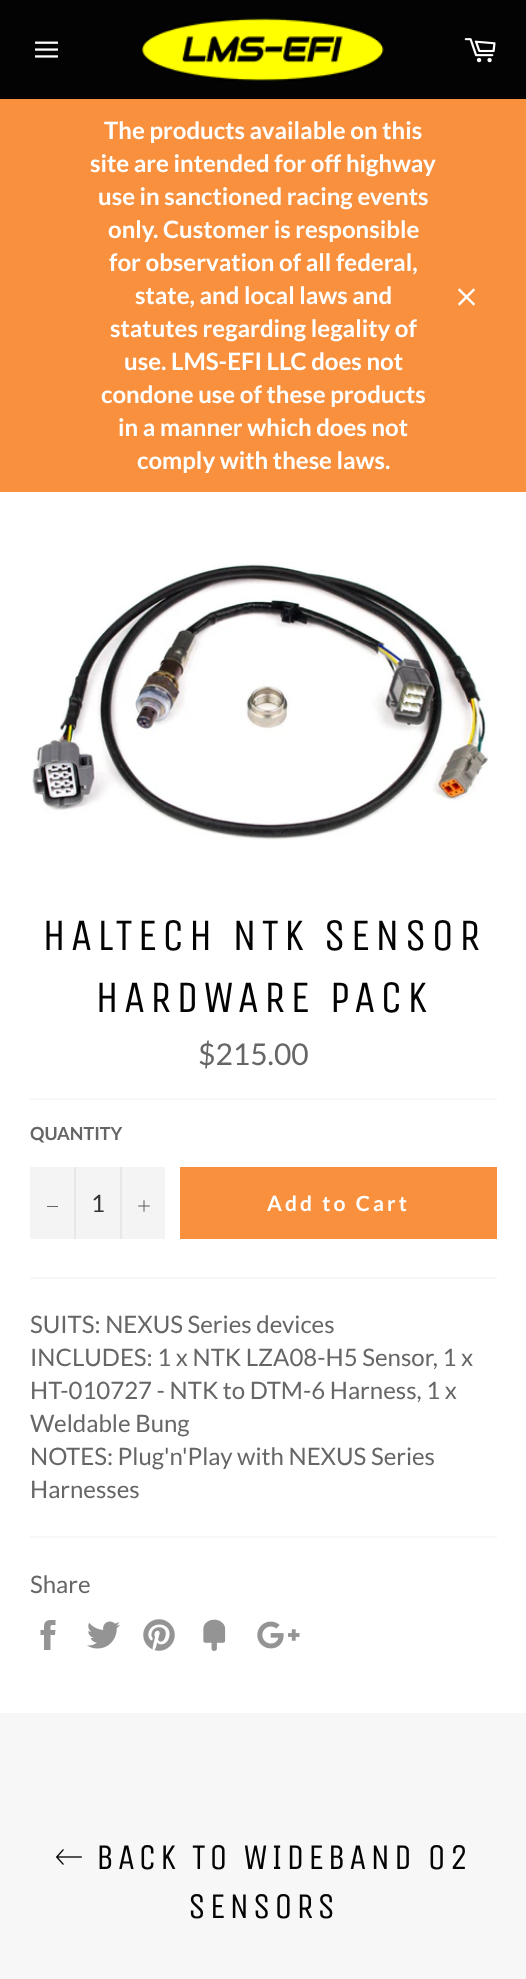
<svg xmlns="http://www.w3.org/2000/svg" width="526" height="1979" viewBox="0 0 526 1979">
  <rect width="100%" height="100%" fill="rgb(255,255,255)"/>
  <rect x="0" y="0" width="526" height="99" fill="rgb(3,3,3)"/>
  <image x="35" y="41" width="23" height="17" href="pic1.png"/>
  <image x="141" y="18" width="243" height="63" href="pic2.png"/>
  <image x="464" y="38" width="32" height="25" href="pic3.png"/>
  <rect x="0" y="99" width="526" height="393" fill="rgb(248,144,62)"/>
  <g font-family="Lato" font-size="24" font-weight="bold" fill="rgb(255,255,255)">
    <text x="104" y="139">The products available on this</text>
    <text x="90" y="172">site are intended for off highway</text>
    <text x="98" y="205">use in sanctioned racing events</text>
    <text x="108" y="238">only. Customer is responsible</text>
    <text x="109" y="271">for observation of all federal,</text>
    <text x="135" y="304">state, and local laws and</text>
    <text x="110" y="337">statutes regarding legality of</text>
    <text x="124" y="370">use. LMS-EFI LLC does not</text>
    <text x="101" y="403">condone use of these products</text>
    <text x="118" y="436">in a manner which does not</text>
    <text x="137" y="469">comply with these laws.</text>
  </g>
  <image x="457" y="288" width="19" height="18" href="pic4.png"/>
  <image x="32" y="562" width="456" height="279" href="pic5.png"/>
  <g font-family="Unica One" font-size="45" letter-spacing="4.5" fill="rgb(3,3,3)">
    <text x="42" y="950">HALTECH NTK SENSOR</text>
    <text x="95" y="1012">HARDWARE PACK</text>
  </g>
  <text x="198" y="1065" font-family="Lato" font-size="30" fill="rgb(102,102,102)">$215.00</text>
  <rect x="30" y="1098" width="467" height="2" fill="rgb(247,247,247)"/>
  <text x="30" y="1140" font-family="Lato" font-size="18" font-weight="bold" fill="rgb(102,102,102)">QUANTITY</text>
  <rect x="30" y="1167" width="135" height="72" fill="rgb(244,244,244)"/>
  <rect x="74" y="1167" width="2" height="72" fill="rgb(231,231,231)"/>
  <rect x="47" y="1206" width="11" height="1" fill="rgb(102,102,102)"/>
  <text x="91" y="1212" font-family="Lato" font-size="24" fill="rgb(51,51,51)">1</text>
  <rect x="120" y="1167" width="2" height="72" fill="rgb(231,231,231)"/>
  <image x="138" y="1200" width="12" height="12" href="pic6.png"/>
  <rect x="180" y="1167" width="317" height="72" fill="rgb(248,144,62)"/>
  <text x="267" y="1211" font-family="Lato" font-size="21" font-weight="bold" letter-spacing="3.1" fill="rgb(255,255,255)">Add to Cart</text>
  <rect x="30" y="1277" width="467" height="2" fill="rgb(247,247,247)"/>
  <g font-family="Lato" font-size="24" fill="rgb(102,102,102)">
    <text>
      <tspan x="30" y="1333">SUITS: NEXUS Series devices</tspan>
      <tspan x="30" y="1366">INCLUDES: 1 x NTK LZA08-H5 Sensor, 1 x</tspan>
      <tspan x="30" y="1399">HT-010727 - NTK to DTM-6 Harness, 1 x</tspan>
      <tspan x="30" y="1432">Weldable Bung</tspan>
      <tspan x="30" y="1465">NOTES: Plug'n'Play with NEXUS Series</tspan>
      <tspan x="30" y="1498">Harnesses</tspan>
    </text>
  </g>
  <rect x="30" y="1536" width="467" height="2" fill="rgb(247,247,247)"/>
  <text x="30" y="1593" font-family="Lato" font-size="24" fill="rgb(102,102,102)">Share</text>
  <image x="40" y="1620" width="16" height="30" href="pic7.png"/>
  <image x="87" y="1621" width="33" height="28" href="pic8.png"/>
  <image x="143" y="1619" width="32" height="32" href="pic9.png"/>
  <image x="203" y="1619" width="23" height="32" href="pic10.png"/>
  <image x="257" y="1621" width="43" height="28" href="pic11.png"/>
  <rect x="0" y="1713" width="526" height="266" fill="rgb(247,247,247)"/>
  <image x="56" y="1849" width="26" height="16" href="pic12.png"/>
  <g font-family="Unica One" font-size="36" letter-spacing="3.6" fill="rgb(3,3,3)">
    <text x="96" y="1869">BACK TO WIDEBAND O2</text>
    <text x="188" y="1918">SENSORS</text>
  </g>
</svg>
